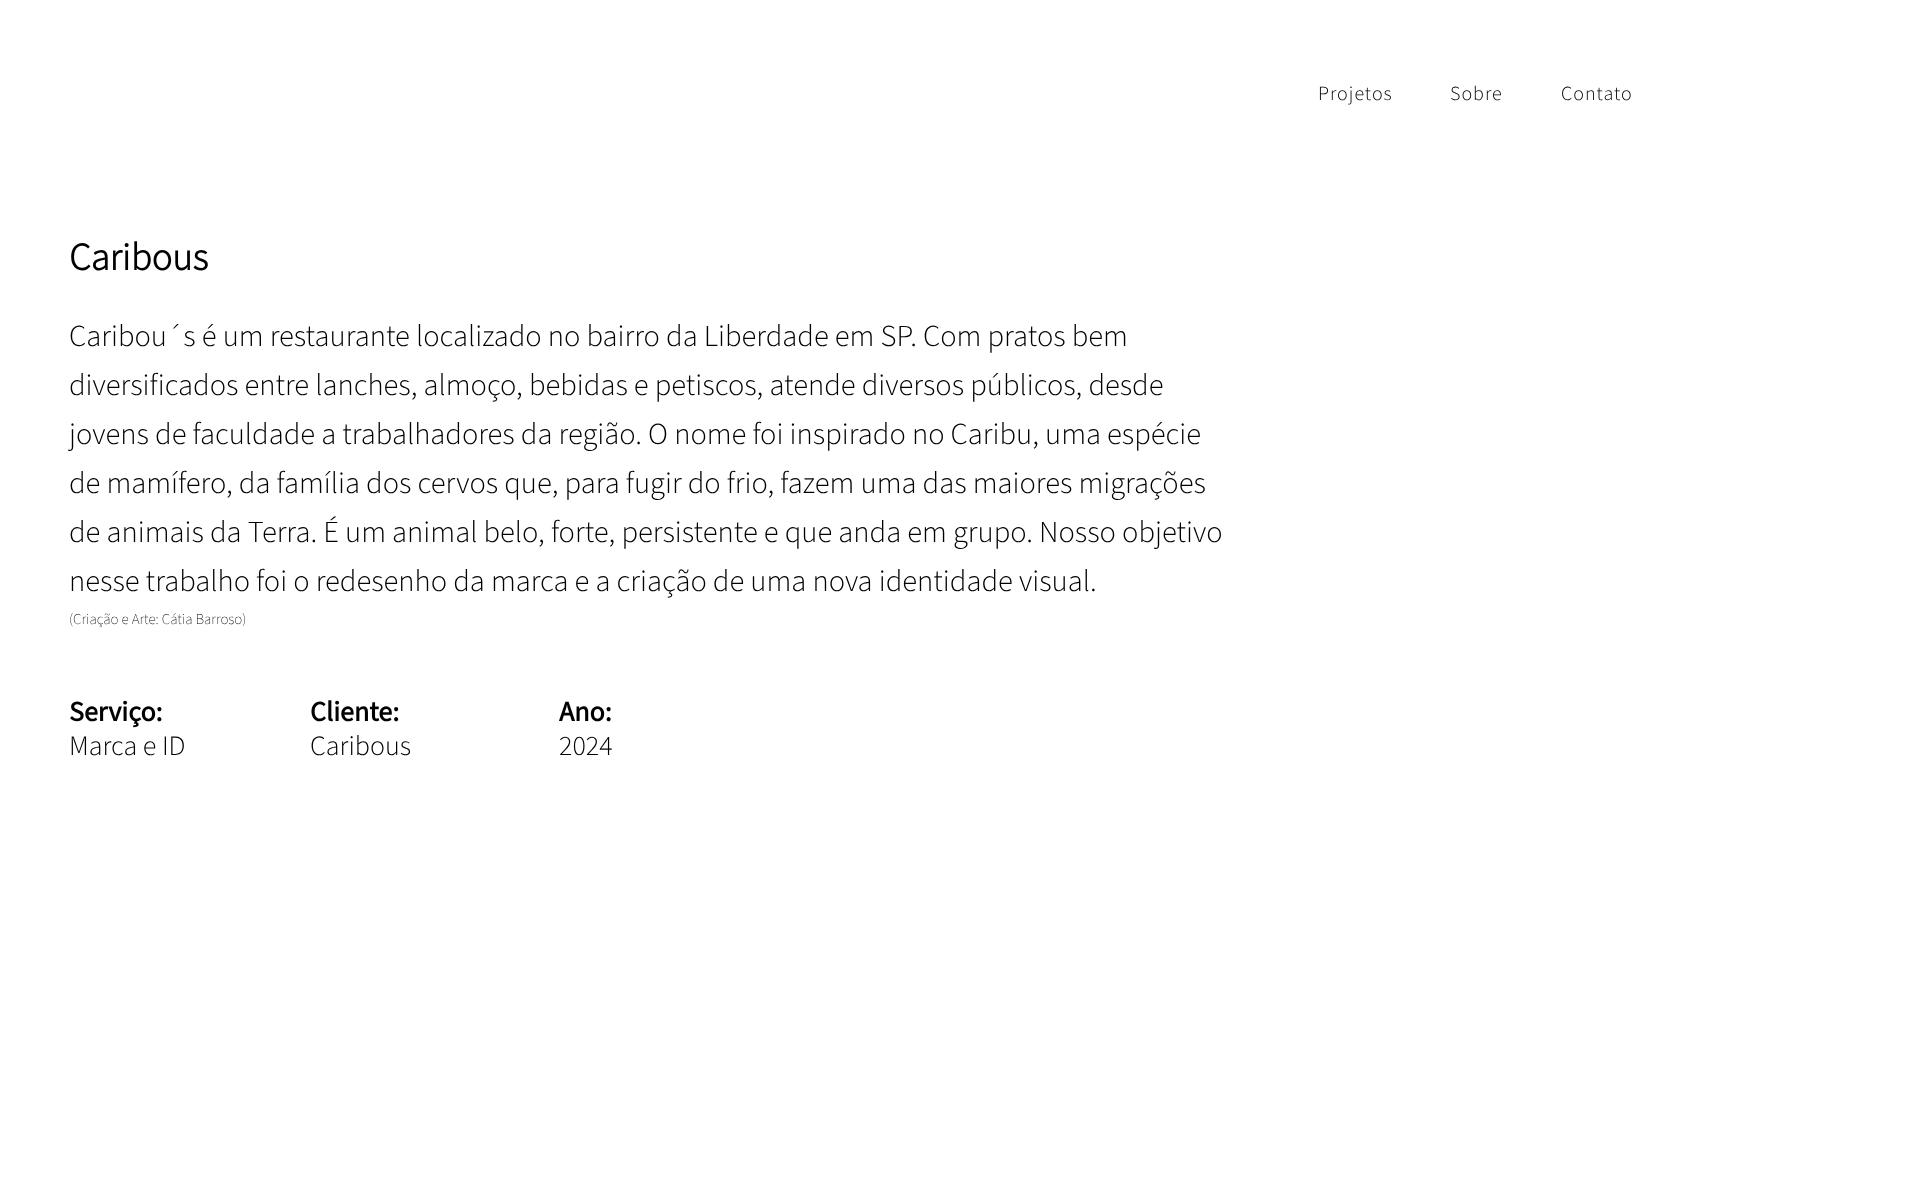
<svg xmlns="http://www.w3.org/2000/svg" width="1929" height="1190" viewBox="0 0 1929 1190">
  <rect width="100%" height="100%" fill="rgb(255,255,255)"/>
  <g font-family="Source Sans Pro" font-size="20" font-weight="300" letter-spacing="1" fill="rgb(0,0,0)">
    <text x="1318" y="100">Projetos</text>
    <text x="1450" y="100">Sobre</text>
    <text x="1561" y="100">Contato</text>
  </g>
  <text x="69" y="270" font-family="'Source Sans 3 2'" font-size="38.5" font-weight="bold" fill="rgb(0,0,0)">Caribous</text>
  <g font-family="'Source Sans 3'" font-size="30.55" font-weight="300" fill="rgb(0,0,0)">
    <text>
      <tspan x="69" y="346">Caribou´s é um restaurante localizado no bairro da Liberdade em SP. Com pratos bem</tspan>
      <tspan x="69" y="395">diversificados entre lanches, almoço, bebidas e petiscos, atende diversos públicos, desde</tspan>
      <tspan x="69" y="444">jovens de faculdade a trabalhadores da região. O nome foi inspirado no Caribu, uma espécie</tspan>
      <tspan x="69" y="493">de mamífero, da família dos cervos que, para fugir do frio, fazem uma das maiores migrações</tspan>
      <tspan x="69" y="542">de animais da Terra. É um animal belo, forte, persistente e que anda em grupo. Nosso objetivo</tspan>
      <tspan x="69" y="591">nesse trabalho foi o redesenho da marca e a criação de uma nova identidade visual.</tspan>
    </text>
  </g>
  <text x="69" y="624" font-family="'Source Sans 3'" font-size="15" font-weight="200" fill="rgb(0,0,0)">(Criação e Arte: Cátia Barroso)</text>
  <text x="69" y="721" font-family="'Source Sans 3'" font-size="28" font-weight="bold" fill="rgb(0,0,0)">Serviço:</text>
  <text x="69" y="755" font-family="'Source Sans 3'" font-size="28" font-weight="300" fill="rgb(0,0,0)">Marca e ID</text>
  <text x="310" y="721" font-family="'Source Sans 3'" font-size="28" font-weight="bold" fill="rgb(0,0,0)">Cliente:</text>
  <text x="310" y="755" font-family="'Source Sans 3'" font-size="28" font-weight="300" fill="rgb(0,0,0)">Caribous</text>
  <text x="559" y="721" font-family="'Source Sans 3'" font-size="28" font-weight="bold" fill="rgb(0,0,0)">Ano:</text>
  <text x="559" y="755" font-family="'Source Sans 3'" font-size="28" font-weight="300" fill="rgb(0,0,0)">2024</text>
</svg>
